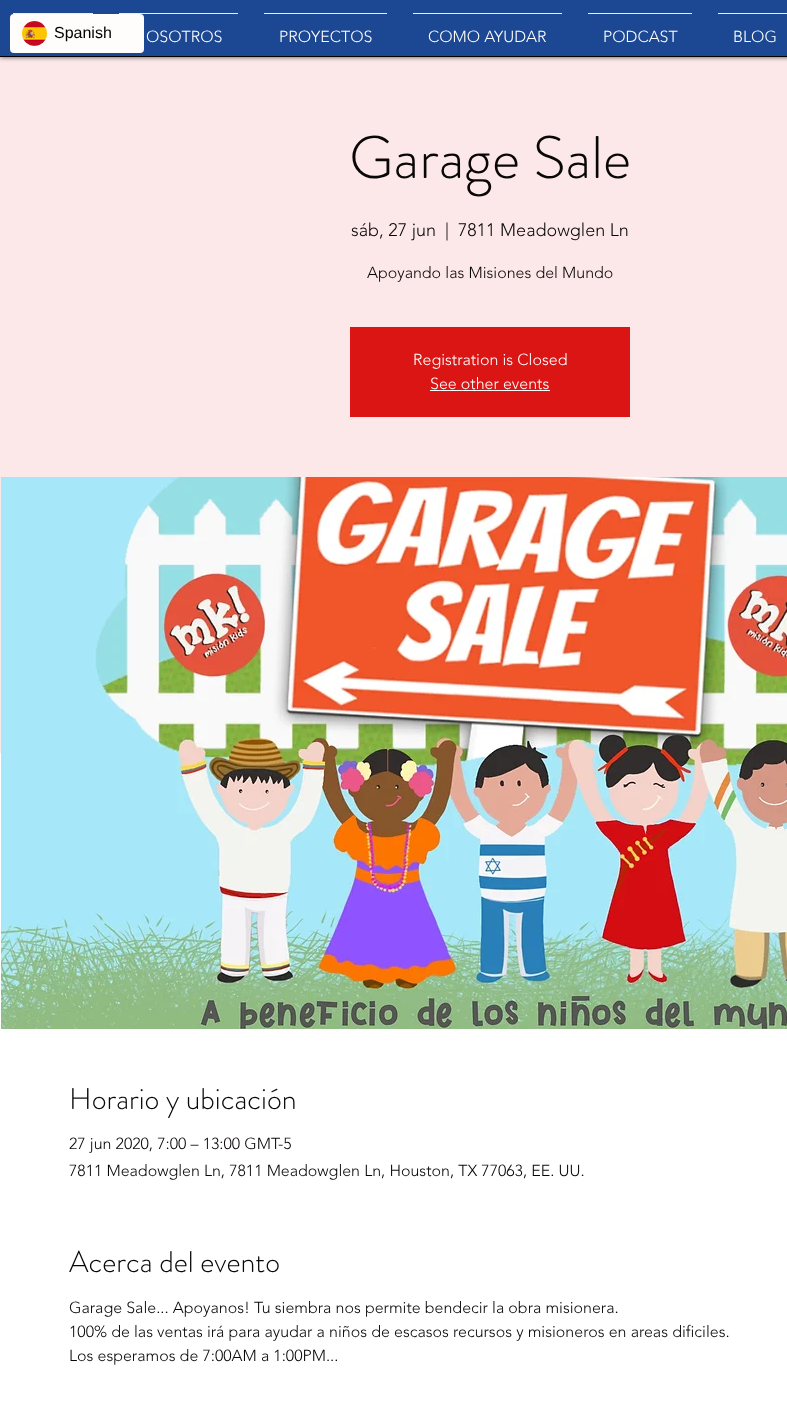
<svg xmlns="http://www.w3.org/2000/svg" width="787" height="1403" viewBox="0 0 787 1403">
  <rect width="100%" height="100%" fill="rgb(255,255,255)"/>
  <rect x="0" y="57" width="787" height="696" fill="rgb(252,232,232)"/>
  <rect x="0" y="0" width="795" height="57" fill="rgba(0,0,0,0.7)" filter="blur(2.5px)"/>
  <rect x="0" y="0" width="787" height="56" fill="rgb(27,71,147)"/>
  <rect x="10" y="14" width="134" height="39" rx="4" fill="rgb(255,252,252)"/>
  <image x="22" y="21" width="25" height="25" href="pic1.png"/>
  <text x="54" y="38" font-family="Liberation Sans" font-size="16" fill="rgb(0,0,0)">Spanish</text>
  <rect x="0" y="56" width="787" height="1" fill="rgb(0,0,0)"/>
  <rect x="13" y="13" width="80" height="1" fill="rgb(237,235,235)"/>
  <rect x="119" y="13" width="119" height="1" fill="rgb(237,235,235)"/>
  <text x="146" y="42" font-family="'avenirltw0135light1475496'" font-size="16" font-weight="300" fill="rgb(255,255,255)">OSOTROS</text>
  <rect x="264" y="13" width="123" height="1" fill="rgb(237,235,235)"/>
  <text x="279" y="42" font-family="'avenirltw0135light1475496'" font-size="16" font-weight="300" fill="rgb(255,255,255)">PROYECTOS</text>
  <rect x="413" y="13" width="149" height="1" fill="rgb(237,235,235)"/>
  <text x="428" y="42" font-family="'avenirltw0135light1475496'" font-size="16" font-weight="300" fill="rgb(255,255,255)">COMO AYUDAR</text>
  <rect x="588" y="13" width="104" height="1" fill="rgb(237,235,235)"/>
  <text x="603" y="42" font-family="'avenirltw0135light1475496'" font-size="16" font-weight="300" fill="rgb(255,255,255)">PODCAST</text>
  <rect x="718" y="13" width="69" height="1" fill="rgb(237,235,235)"/>
  <text x="733" y="42" font-family="'avenirltw0135light1475496'" font-size="16" font-weight="300" fill="rgb(255,255,255)">BLOG</text>
  <text x="349" y="178" font-family="'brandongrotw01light'" font-size="60" font-weight="300" fill="rgb(9,6,6)">Garage Sale</text>
  <g font-family="'avenirltw0135light1475496'" font-size="18" font-weight="300" fill="rgb(9,6,6)">
    <text x="351" y="236">sáb, 27 jun</text>
    <text x="445" y="236">|</text>
    <text x="458" y="236">7811 Meadowglen Ln</text>
  </g>
  <text x="367" y="278" font-family="'avenirltw0135light1475496'" font-size="16" font-weight="300" fill="rgb(9,6,6)">Apoyando las Misiones del Mundo</text>
  <rect x="350" y="327" width="280" height="90" fill="rgb(219,20,20)"/>
  <g font-family="'avenirltw0135light1475496'" font-size="16" font-weight="300" fill="rgb(255,255,255)">
    <text x="413" y="365">Registration is Closed</text>
    <text x="430" y="389">See other events</text>
  </g>
  <rect x="430" y="390" width="120" height="1" fill="rgb(255,255,255)"/>
  <image x="1" y="477" width="786" height="552" href="pic2.png"/>
  <text x="69" y="1109" font-family="'brandongrotw01light'" font-size="30" font-weight="300" fill="rgb(9,6,6)">Horario y ubicación</text>
  <g font-family="'avenirltw0135light1475496'" font-size="16" font-weight="300" fill="rgb(9,6,6)">
    <text>
      <tspan x="69" y="1149">27 jun 2020, 7:00 – 13:00 GMT-5</tspan>
      <tspan x="69" y="1176">7811 Meadowglen Ln, 7811 Meadowglen Ln, Houston, TX 77063, EE. UU.</tspan>
    </text>
  </g>
  <text x="69" y="1272" font-family="'brandongrotw01light'" font-size="30" font-weight="300" fill="rgb(9,6,6)">Acerca del evento</text>
  <g font-family="'avenirltw0135light1475496'" font-size="16" font-weight="300" fill="rgb(9,6,6)">
    <text>
      <tspan x="69" y="1313">Garage Sale... Apoyanos! Tu siembra nos permite bendecir la obra misionera.</tspan>
      <tspan x="69" y="1337">100% de las ventas irá para ayudar a niños de escasos recursos y misioneros en areas dificiles.</tspan>
      <tspan x="69" y="1361">Los esperamos de 7:00AM a 1:00PM...</tspan>
    </text>
  </g>
</svg>
